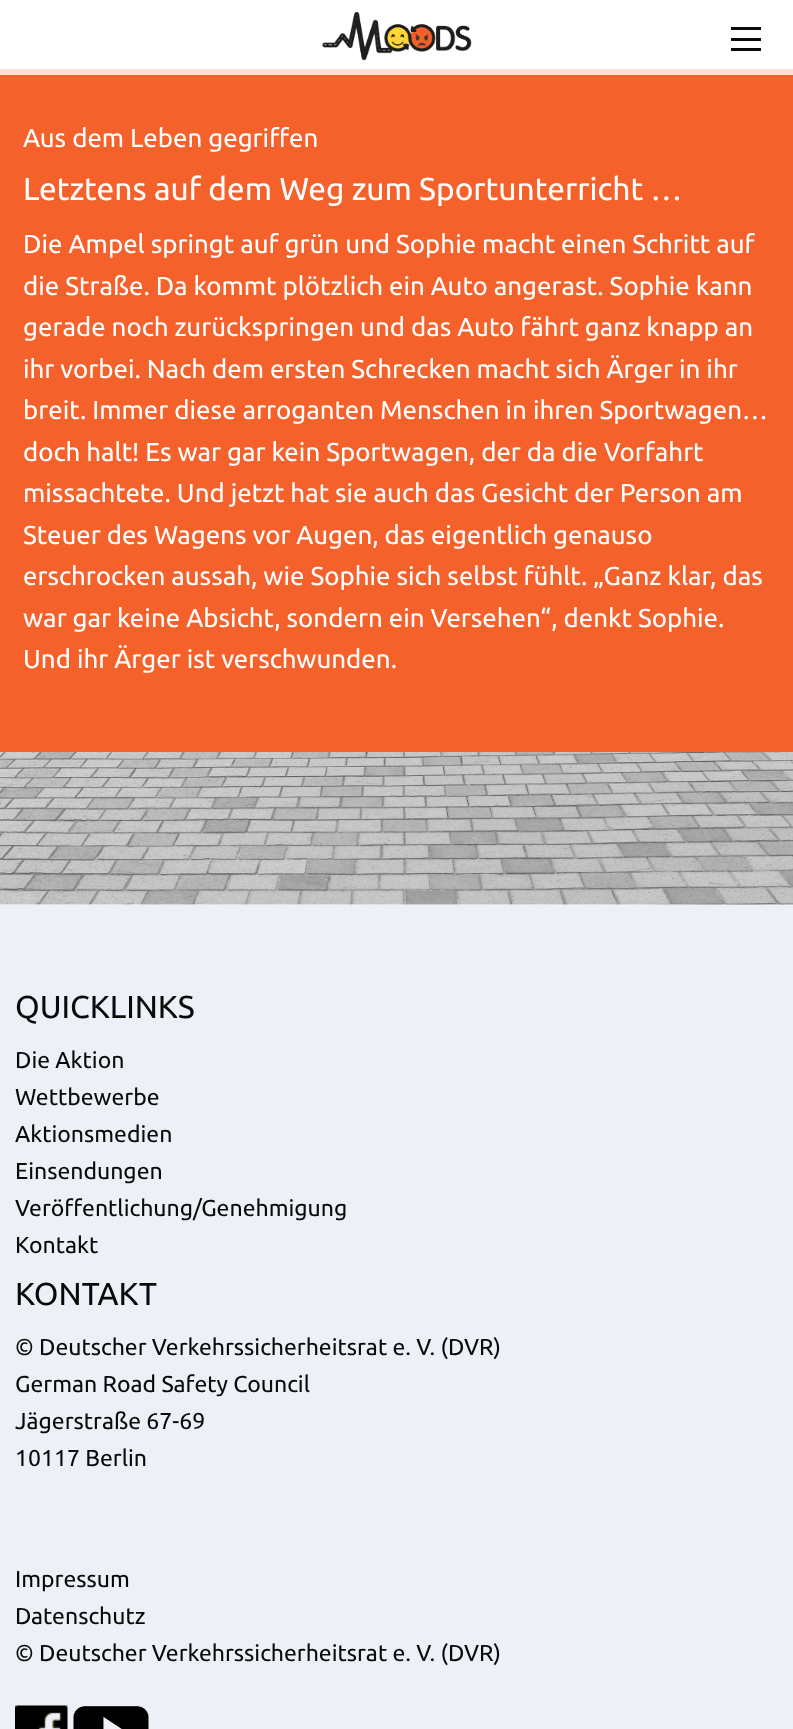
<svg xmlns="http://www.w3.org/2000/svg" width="793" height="1729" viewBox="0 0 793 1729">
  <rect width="100%" height="100%" fill="rgb(255,255,255)"/>
  <rect x="0" y="69" width="793" height="683" fill="rgb(245,97,43)"/>
  <rect x="0" y="69" width="793" height="6" fill="rgba(254,254,254,0.8)"/>
  <image x="322" y="12" width="150" height="49" href="pic1.png"/>
  <rect x="731" y="48" width="30" height="3" fill="rgb(10,10,10)"/>
  <rect x="731" y="38" width="30" height="3" fill="rgb(10,10,10)"/>
  <rect x="731" y="27" width="30" height="3" fill="rgb(10,10,10)"/>
  <text x="23" y="147" font-family="Ubuntu" font-size="25.9" fill="rgb(254,254,254)">Aus dem Leben gegriffen</text>
  <text x="23" y="200" font-family="Ubuntu" font-size="31.75" fill="rgb(254,254,254)">Letztens auf dem Weg zum Sportunterricht …</text>
  <g font-family="Ubuntu" font-size="25.9" fill="rgb(254,254,254)">
    <text>
      <tspan x="23" y="253">Die Ampel springt auf grün und Sophie macht einen Schritt auf</tspan>
      <tspan x="23" y="295">die Straße. Da kommt plötzlich ein Auto angerast. Sophie kann</tspan>
      <tspan x="23" y="336">gerade noch zurückspringen und das Auto fährt ganz knapp an</tspan>
      <tspan x="23" y="378">ihr vorbei. Nach dem ersten Schrecken macht sich Ärger in ihr</tspan>
      <tspan x="23" y="419">breit. Immer diese arroganten Menschen in ihren Sportwagen…</tspan>
      <tspan x="23" y="461">doch halt! Es war gar kein Sportwagen, der da die Vorfahrt</tspan>
      <tspan x="23" y="502">missachtete. Und jetzt hat sie auch das Gesicht der Person am</tspan>
      <tspan x="23" y="544">Steuer des Wagens vor Augen, das eigentlich genauso</tspan>
      <tspan x="23" y="585">erschrocken aussah, wie Sophie sich selbst fühlt. „Ganz klar, das</tspan>
      <tspan x="23" y="627">war gar keine Absicht, sondern ein Versehen“, denkt Sophie.</tspan>
      <tspan x="23" y="668">Und ihr Ärger ist verschwunden.</tspan>
    </text>
  </g>
  <image x="0" y="752" width="793" height="153" href="pic2.png"/>
  <rect x="0" y="905" width="793" height="824" fill="rgb(237,240,246)"/>
  <text x="15" y="1018" font-family="Ubuntu" font-size="31.75" fill="rgb(10,10,10)">QUICKLINKS</text>
  <g font-family="Ubuntu" font-size="23" fill="rgb(10,10,10)">
    <text>
      <tspan x="15" y="1068">Die Aktion</tspan>
      <tspan x="15" y="1105">Wettbewerbe</tspan>
      <tspan x="15" y="1142">Aktionsmedien</tspan>
      <tspan x="15" y="1179">Einsendungen</tspan>
      <tspan x="15" y="1216">Veröffentlichung/Genehmigung</tspan>
      <tspan x="15" y="1253">Kontakt</tspan>
    </text>
  </g>
  <text x="15" y="1305" font-family="Ubuntu" font-size="31.75" fill="rgb(10,10,10)">KONTAKT</text>
  <g font-family="Ubuntu" font-size="23" fill="rgb(10,10,10)">
    <text>
      <tspan x="15" y="1355">© Deutscher Verkehrssicherheitsrat e. V. (DVR)</tspan>
      <tspan x="15" y="1392">German Road Safety Council</tspan>
      <tspan x="15" y="1429">Jägerstraße 67-69</tspan>
      <tspan x="15" y="1466">10117 Berlin</tspan>
    </text>
    <text>
      <tspan x="15" y="1587">Impressum</tspan>
      <tspan x="15" y="1624">Datenschutz</tspan>
      <tspan x="15" y="1661">© Deutscher Verkehrssicherheitsrat e. V. (DVR)</tspan>
    </text>
  </g>
  <image x="15" y="1705" width="53" height="24" href="pic3.png"/>
  <image x="73" y="1706" width="76" height="23" href="pic4.png"/>
</svg>
